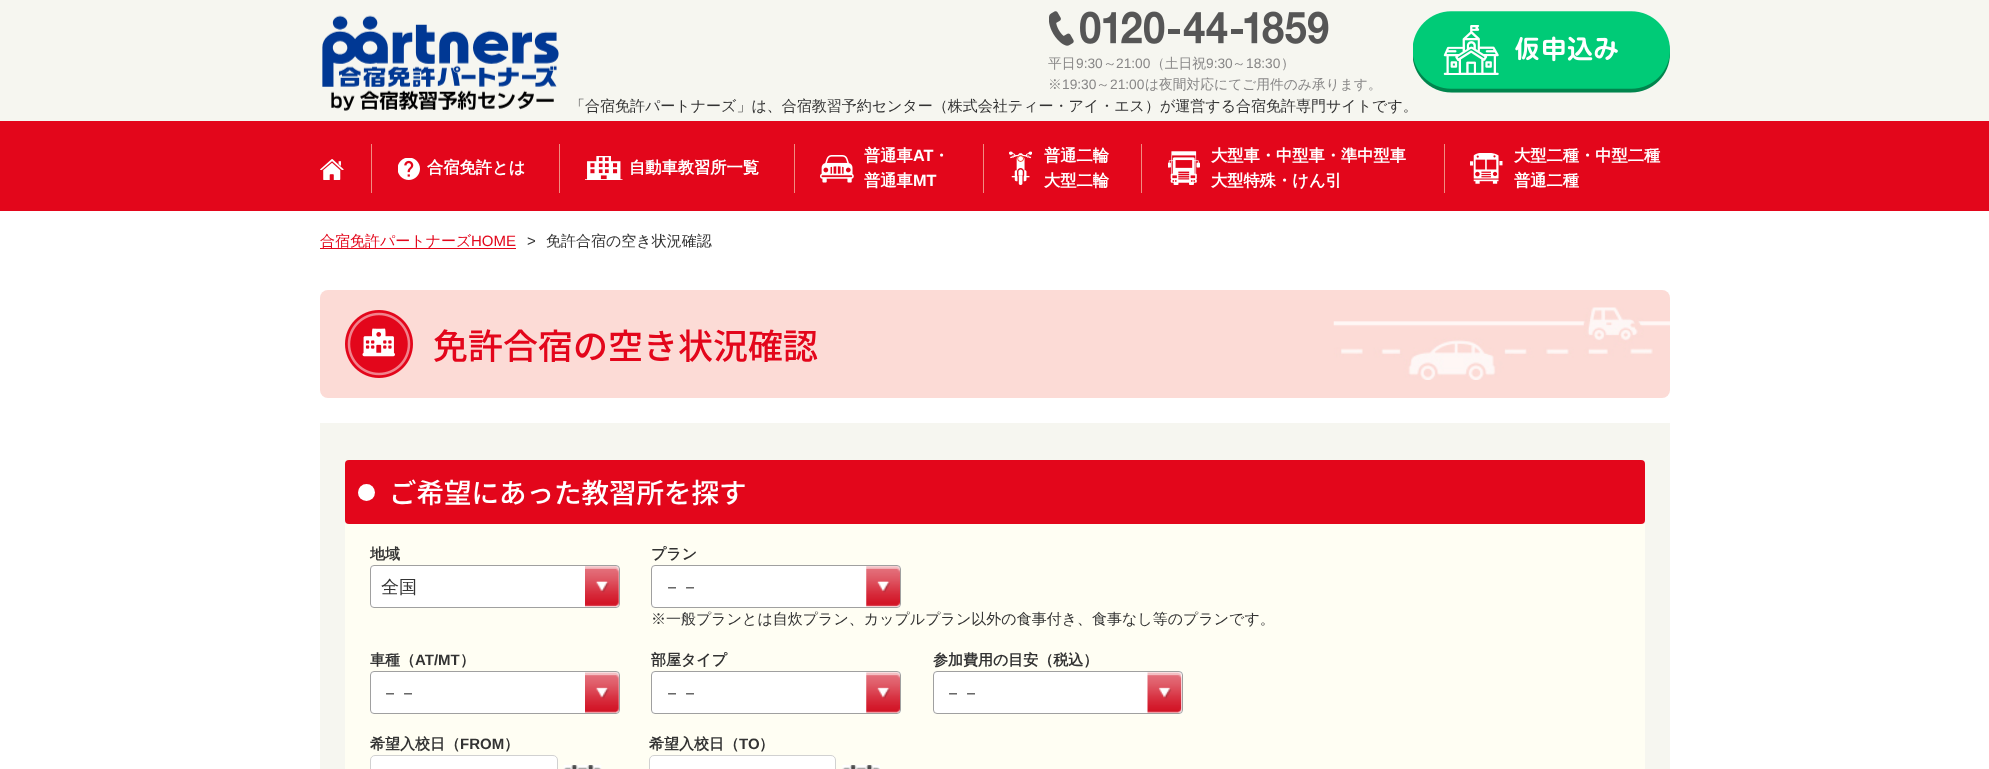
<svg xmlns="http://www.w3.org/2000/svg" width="1989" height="769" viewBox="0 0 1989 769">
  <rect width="100%" height="100%" fill="rgb(255,255,255)"/>
  <rect x="0" y="0" width="1989" height="121" fill="rgb(246,246,240)"/>
  <image x="322" y="15" width="237" height="96" href="pic1.png"/>
  <image x="1049" y="11" width="280" height="35" href="pic2.png"/>
  <text x="1048" y="68" font-family="WenQuanYi Zen Hei" font-size="13.75" font-weight="500" fill="rgb(136,135,135)">平日</text>
  <text x="1076" y="68" font-family="Liberation Sans" font-size="13.75" fill="rgb(136,135,135)">9:30</text>
  <text x="1103" y="68" font-family="WenQuanYi Zen Hei" font-size="13.75" font-weight="500" fill="rgb(136,135,135)">～</text>
  <text x="1116" y="68" font-family="Liberation Sans" font-size="13.75" fill="rgb(136,135,135)">21:00</text>
  <text x="1151" y="68" font-family="WenQuanYi Zen Hei" font-size="13.75" font-weight="500" fill="rgb(136,135,135)">（土日祝</text>
  <text x="1206" y="68" font-family="Liberation Sans" font-size="13.75" fill="rgb(136,135,135)">9:30</text>
  <text x="1232" y="68" font-family="WenQuanYi Zen Hei" font-size="13.75" font-weight="500" fill="rgb(136,135,135)">～</text>
  <text x="1246" y="68" font-family="Liberation Sans" font-size="13.75" fill="rgb(136,135,135)">18:30</text>
  <g font-family="WenQuanYi Zen Hei" font-size="13.75" font-weight="500" fill="rgb(136,135,135)">
    <text x="1281" y="68">）</text>
    <text x="1048" y="89">※</text>
  </g>
  <text x="1062" y="89" font-family="Liberation Sans" font-size="13.75" fill="rgb(136,135,135)">19:30</text>
  <text x="1096" y="89" font-family="WenQuanYi Zen Hei" font-size="13.75" font-weight="500" fill="rgb(136,135,135)">～</text>
  <text x="1110" y="89" font-family="Liberation Sans" font-size="13.75" fill="rgb(136,135,135)">21:00</text>
  <text x="1145" y="89" font-family="WenQuanYi Zen Hei" font-size="13.75" font-weight="500" fill="rgb(136,135,135)">は夜間対応にてご用件のみ承ります。</text>
  <image x="1413" y="11" width="257" height="82" href="pic3.png"/>
  <text x="570" y="111" font-family="WenQuanYi Zen Hei" font-size="15" font-weight="500" fill="rgb(51,51,51)">「合宿免許パートナーズ」は、合宿教習予約センター（株式会社ティー・アイ・エス）が運営する合宿免許専門サイトです。</text>
  <rect x="0" y="121" width="1989" height="90" fill="rgb(227,6,27)"/>
  <image x="320" y="159" width="24" height="21" href="pic4.png"/>
  <rect x="371" y="144" width="1" height="49" fill="rgb(241,140,129)"/>
  <image x="398" y="158" width="22" height="22" href="pic5.png"/>
  <text x="427" y="173" font-family="WenQuanYi Zen Hei" font-size="16.25" font-weight="bold" fill="rgb(255,255,255)">合宿免許とは</text>
  <rect x="559" y="144" width="1" height="49" fill="rgb(241,140,129)"/>
  <image x="585" y="156" width="38" height="24" href="pic6.png"/>
  <text x="629" y="173" font-family="WenQuanYi Zen Hei" font-size="16.25" font-weight="bold" fill="rgb(255,255,255)">自動車教習所一覧</text>
  <rect x="794" y="144" width="1" height="49" fill="rgb(241,140,129)"/>
  <image x="820" y="155" width="34" height="28" href="pic7.png"/>
  <text x="864" y="161" font-family="WenQuanYi Zen Hei" font-size="16.25" font-weight="bold" fill="rgb(255,255,255)">普通車</text>
  <text x="913" y="161" font-family="Liberation Sans" font-size="16.25" font-weight="bold" fill="rgb(255,255,255)">AT</text>
  <g font-family="WenQuanYi Zen Hei" font-size="16.25" font-weight="bold" fill="rgb(255,255,255)">
    <text x="933" y="161">・</text>
    <text x="864" y="186">普通車</text>
  </g>
  <text x="913" y="186" font-family="Liberation Sans" font-size="16.25" font-weight="bold" fill="rgb(255,255,255)">MT</text>
  <rect x="983" y="144" width="1" height="49" fill="rgb(241,140,129)"/>
  <image x="1009" y="151" width="23" height="34" href="pic8.png"/>
  <g font-family="WenQuanYi Zen Hei" font-size="16.25" font-weight="bold" fill="rgb(255,255,255)">
    <text>
      <tspan x="1044" y="161">普通二輪</tspan>
      <tspan x="1044" y="186">大型二輪</tspan>
    </text>
  </g>
  <rect x="1141" y="144" width="1" height="49" fill="rgb(241,140,129)"/>
  <image x="1168" y="151" width="32" height="34" href="pic9.png"/>
  <g font-family="WenQuanYi Zen Hei" font-size="16.25" font-weight="bold" fill="rgb(255,255,255)">
    <text>
      <tspan x="1211" y="161">大型車・中型車・準中型車</tspan>
      <tspan x="1211" y="186">大型特殊・けん引</tspan>
    </text>
  </g>
  <rect x="1444" y="144" width="1" height="49" fill="rgb(241,140,129)"/>
  <image x="1470" y="153" width="33" height="31" href="pic10.png"/>
  <g font-family="WenQuanYi Zen Hei" font-size="16.25" font-weight="bold" fill="rgb(255,255,255)">
    <text>
      <tspan x="1514" y="161">大型二種・中型二種</tspan>
      <tspan x="1514" y="186">普通二種</tspan>
    </text>
  </g>
  <rect x="320" y="248" width="196" height="1" fill="rgb(227,6,27)"/>
  <text x="320" y="246" font-family="WenQuanYi Zen Hei" font-size="15" font-weight="500" fill="rgb(227,6,27)">合宿免許パートナーズ</text>
  <text x="471" y="246" font-family="Liberation Sans" font-size="15" fill="rgb(227,6,27)">HOME</text>
  <text x="527" y="246" font-family="Liberation Sans" font-size="15" fill="rgb(51,51,51)">&gt;</text>
  <text x="546" y="246" font-family="WenQuanYi Zen Hei" font-size="15" font-weight="500" fill="rgb(51,51,51)">免許合宿の空き状況確認</text>
  <rect x="320" y="290" width="1350" height="108" rx="8" fill="rgb(252,219,214)"/>
  <image x="1333" y="307" width="337" height="73" href="pic11.png"/>
  <image x="345" y="310" width="68" height="68" href="pic12.png"/>
  <text x="433" y="359" font-family="Noto Sans JP" font-size="35" font-weight="500" fill="rgb(227,6,27)">免許合宿の空き状況確認</text>
  <rect x="320" y="423" width="1350" height="346" fill="rgb(246,246,240)"/>
  <rect x="345" y="460" width="1300" height="64" rx="4" fill="rgb(227,6,27)"/>
  <circle cx="366.5" cy="492.5" r="8.5" fill="rgb(255,255,255)"/>
  <text x="389" y="503" font-family="Noto Sans JP" font-size="27.5" font-weight="500" fill="rgb(255,255,255)">ご希望にあった教習所を探す</text>
  <rect x="345" y="524" width="1300" height="245" fill="rgb(255,254,243)"/>
  <text x="370" y="559" font-family="WenQuanYi Zen Hei" font-size="15" font-weight="bold" fill="rgb(51,51,51)">地域</text>
  <rect x="370" y="565" width="250" height="43" rx="4" fill="rgb(255,255,255)"/>
  <image x="585" y="566" width="34" height="41" href="pic13.png"/>
  <rect x="370.5" y="565.5" width="249" height="42" rx="3.5" fill="none" stroke="rgb(160,160,160)"/>
  <text x="381" y="593" font-family="WenQuanYi Zen Hei" font-size="18" font-weight="500" fill="rgb(51,51,51)">全国</text>
  <text x="651" y="559" font-family="WenQuanYi Zen Hei" font-size="15" font-weight="bold" fill="rgb(51,51,51)">プラン</text>
  <rect x="651" y="565" width="250" height="43" rx="4" fill="rgb(255,255,255)"/>
  <image x="866" y="566" width="34" height="41" href="pic14.png"/>
  <rect x="651.5" y="565.5" width="249" height="42" rx="3.5" fill="none" stroke="rgb(160,160,160)"/>
  <text x="663" y="593" font-family="WenQuanYi Zen Hei" font-size="18" font-weight="500" fill="rgb(51,51,51)">－－</text>
  <text x="651" y="624" font-family="WenQuanYi Zen Hei" font-size="15" font-weight="500" fill="rgb(51,51,51)">※一般プランとは自炊プラン、カップルプラン以外の食事付き、食事なし等のプランです。</text>
  <text x="370" y="665" font-family="WenQuanYi Zen Hei" font-size="15" font-weight="bold" fill="rgb(51,51,51)">車種（</text>
  <text x="415" y="665" font-family="Liberation Sans" font-size="15" font-weight="bold" fill="rgb(51,51,51)">AT/MT</text>
  <text x="460" y="665" font-family="WenQuanYi Zen Hei" font-size="15" font-weight="bold" fill="rgb(51,51,51)">）</text>
  <rect x="370" y="671" width="250" height="43" rx="4" fill="rgb(255,255,255)"/>
  <image x="585" y="672" width="34" height="41" href="pic15.png"/>
  <rect x="370.5" y="671.5" width="249" height="42" rx="3.5" fill="none" stroke="rgb(160,160,160)"/>
  <text x="381" y="699" font-family="WenQuanYi Zen Hei" font-size="18" font-weight="500" fill="rgb(51,51,51)">－－</text>
  <text x="651" y="665" font-family="WenQuanYi Zen Hei" font-size="15" font-weight="bold" fill="rgb(51,51,51)">部屋タイプ</text>
  <rect x="651" y="671" width="250" height="43" rx="4" fill="rgb(255,255,255)"/>
  <image x="866" y="672" width="34" height="41" href="pic16.png"/>
  <rect x="651.5" y="671.5" width="249" height="42" rx="3.5" fill="none" stroke="rgb(160,160,160)"/>
  <text x="663" y="699" font-family="WenQuanYi Zen Hei" font-size="18" font-weight="500" fill="rgb(51,51,51)">－－</text>
  <text x="933" y="665" font-family="WenQuanYi Zen Hei" font-size="15" font-weight="bold" fill="rgb(51,51,51)">参加費用の目安（税込）</text>
  <rect x="933" y="671" width="250" height="43" rx="4" fill="rgb(255,255,255)"/>
  <image x="1147" y="672" width="35" height="41" href="pic17.png"/>
  <rect x="933.5" y="671.5" width="249" height="42" rx="3.5" fill="none" stroke="rgb(160,160,160)"/>
  <text x="944" y="699" font-family="WenQuanYi Zen Hei" font-size="18" font-weight="500" fill="rgb(51,51,51)">－－</text>
  <text x="370" y="749" font-family="WenQuanYi Zen Hei" font-size="15" font-weight="bold" fill="rgb(51,51,51)">希望入校日（</text>
  <text x="460" y="749" font-family="Liberation Sans" font-size="15" font-weight="bold" fill="rgb(51,51,51)">FROM</text>
  <text x="504" y="749" font-family="WenQuanYi Zen Hei" font-size="15" font-weight="bold" fill="rgb(51,51,51)">）</text>
  <rect x="370.5" y="755.5" width="187" height="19" rx="4.5" fill="rgb(255,255,255)" stroke="rgb(209,209,209)"/>
  <image x="563" y="765" width="39" height="4" href="pic18.png"/>
  <text x="649" y="749" font-family="WenQuanYi Zen Hei" font-size="15" font-weight="bold" fill="rgb(51,51,51)">希望入校日（</text>
  <text x="739" y="749" font-family="Liberation Sans" font-size="15" font-weight="bold" fill="rgb(51,51,51)">TO</text>
  <text x="759" y="749" font-family="WenQuanYi Zen Hei" font-size="15" font-weight="bold" fill="rgb(51,51,51)">）</text>
  <rect x="649.5" y="755.5" width="186" height="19" rx="4.5" fill="rgb(255,255,255)" stroke="rgb(209,209,209)"/>
  <image x="842" y="765" width="38" height="4" href="pic19.png"/>
</svg>
